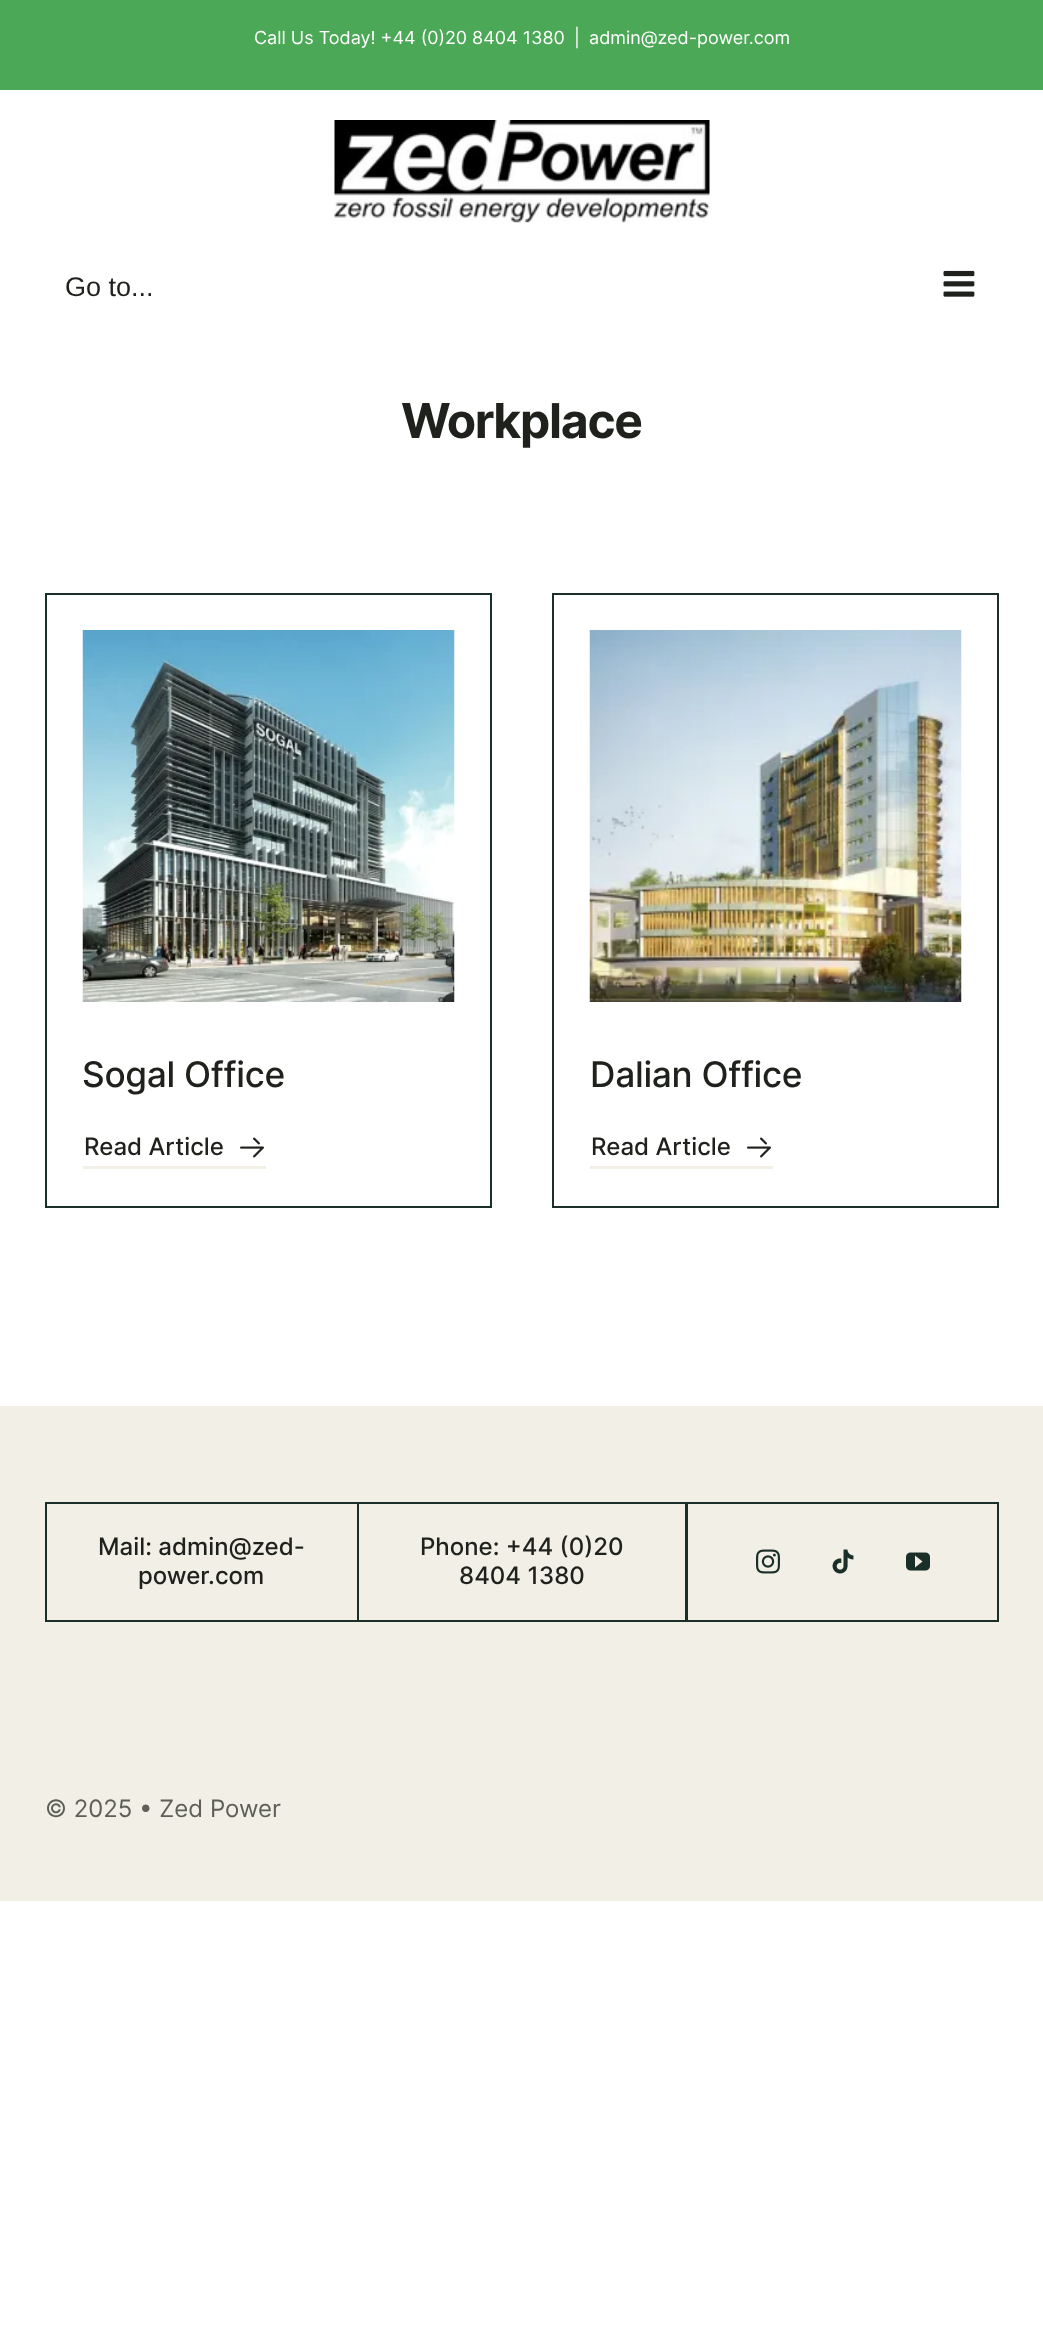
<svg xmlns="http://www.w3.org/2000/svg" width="1043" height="2330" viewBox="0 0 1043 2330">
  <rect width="100%" height="100%" fill="rgb(255,255,255)"/>
  <rect x="0" y="0" width="1043" height="90" fill="rgb(75,168,86)"/>
  <g font-family="Inter" font-size="18" fill="rgb(255,255,255)">
    <text x="254" y="44">Call Us Today! +44 (0)20 8404 1380</text>
    <text x="574" y="44">|</text>
    <text x="589" y="44">admin@zed-power.com</text>
  </g>
  <image x="334" y="120" width="376" height="103" href="pic1.png"/>
  <text x="65" y="296" font-family="Liberation Sans" font-size="27" fill="rgb(31,33,28)">Go to...</text>
  <image x="943" y="270" width="32" height="27" href="pic2.png"/>
  <text x="401" y="438" font-family="Inter" font-size="48" font-weight="bold" letter-spacing="-1.25" fill="rgb(31,33,28)">Workplace</text>
  <rect x="46" y="594" width="445" height="613" fill="none" stroke="rgb(26,47,39)" stroke-width="2"/>
  <image x="82" y="630" width="373" height="372" href="pic3.png"/>
  <text x="82" y="1087" font-family="Inter" font-size="35.25" font-weight="500" letter-spacing="-0.3" fill="rgb(31,33,28)">Sogal Office</text>
  <rect x="83" y="1166" width="183" height="3" fill="rgb(241,239,230)"/>
  <text x="84" y="1155" font-family="Inter" font-size="24" font-weight="500" fill="rgb(31,33,28)">Read Article</text>
  <image x="240" y="1137" width="24" height="21" href="pic4.png"/>
  <rect x="553" y="594" width="445" height="613" fill="none" stroke="rgb(26,47,39)" stroke-width="2"/>
  <image x="589" y="630" width="373" height="372" href="pic5.png"/>
  <text x="590" y="1087" font-family="Inter" font-size="35.25" font-weight="500" letter-spacing="-0.3" fill="rgb(31,33,28)">Dalian Office</text>
  <rect x="590" y="1166" width="183" height="3" fill="rgb(241,239,230)"/>
  <text x="591" y="1155" font-family="Inter" font-size="24" font-weight="500" fill="rgb(31,33,28)">Read Article</text>
  <image x="747" y="1137" width="24" height="21" href="pic4.png"/>
  <rect x="0" y="1406" width="1043" height="495" fill="rgb(241,239,230)"/>
  <rect x="46" y="1503" width="312" height="118" fill="none" stroke="rgb(26,47,39)" stroke-width="2"/>
  <g font-family="Inter" font-size="24" font-weight="500" fill="rgb(31,33,28)">
    <text x="98" y="1555">Mail: admin@zed-</text>
    <text x="138" y="1584">power.com</text>
  </g>
  <rect x="358" y="1503" width="328" height="118" fill="none" stroke="rgb(26,47,39)" stroke-width="2"/>
  <g font-family="Inter" font-size="24" font-weight="500" fill="rgb(31,33,28)">
    <text x="420" y="1555">Phone: +44 (0)20</text>
    <text x="459" y="1584">8404 1380</text>
  </g>
  <rect x="687" y="1503" width="311" height="118" fill="none" stroke="rgb(26,47,39)" stroke-width="2"/>
  <image x="756" y="1549" width="24" height="25" href="pic6.png"/>
  <image x="832" y="1549" width="22" height="25" href="pic7.png"/>
  <image x="906" y="1552" width="24" height="19" href="pic8.png"/>
  <text x="45" y="1817" font-family="Inter" font-size="24" fill="rgb(94,95,89)">© 2025 • Zed Power</text>
</svg>
